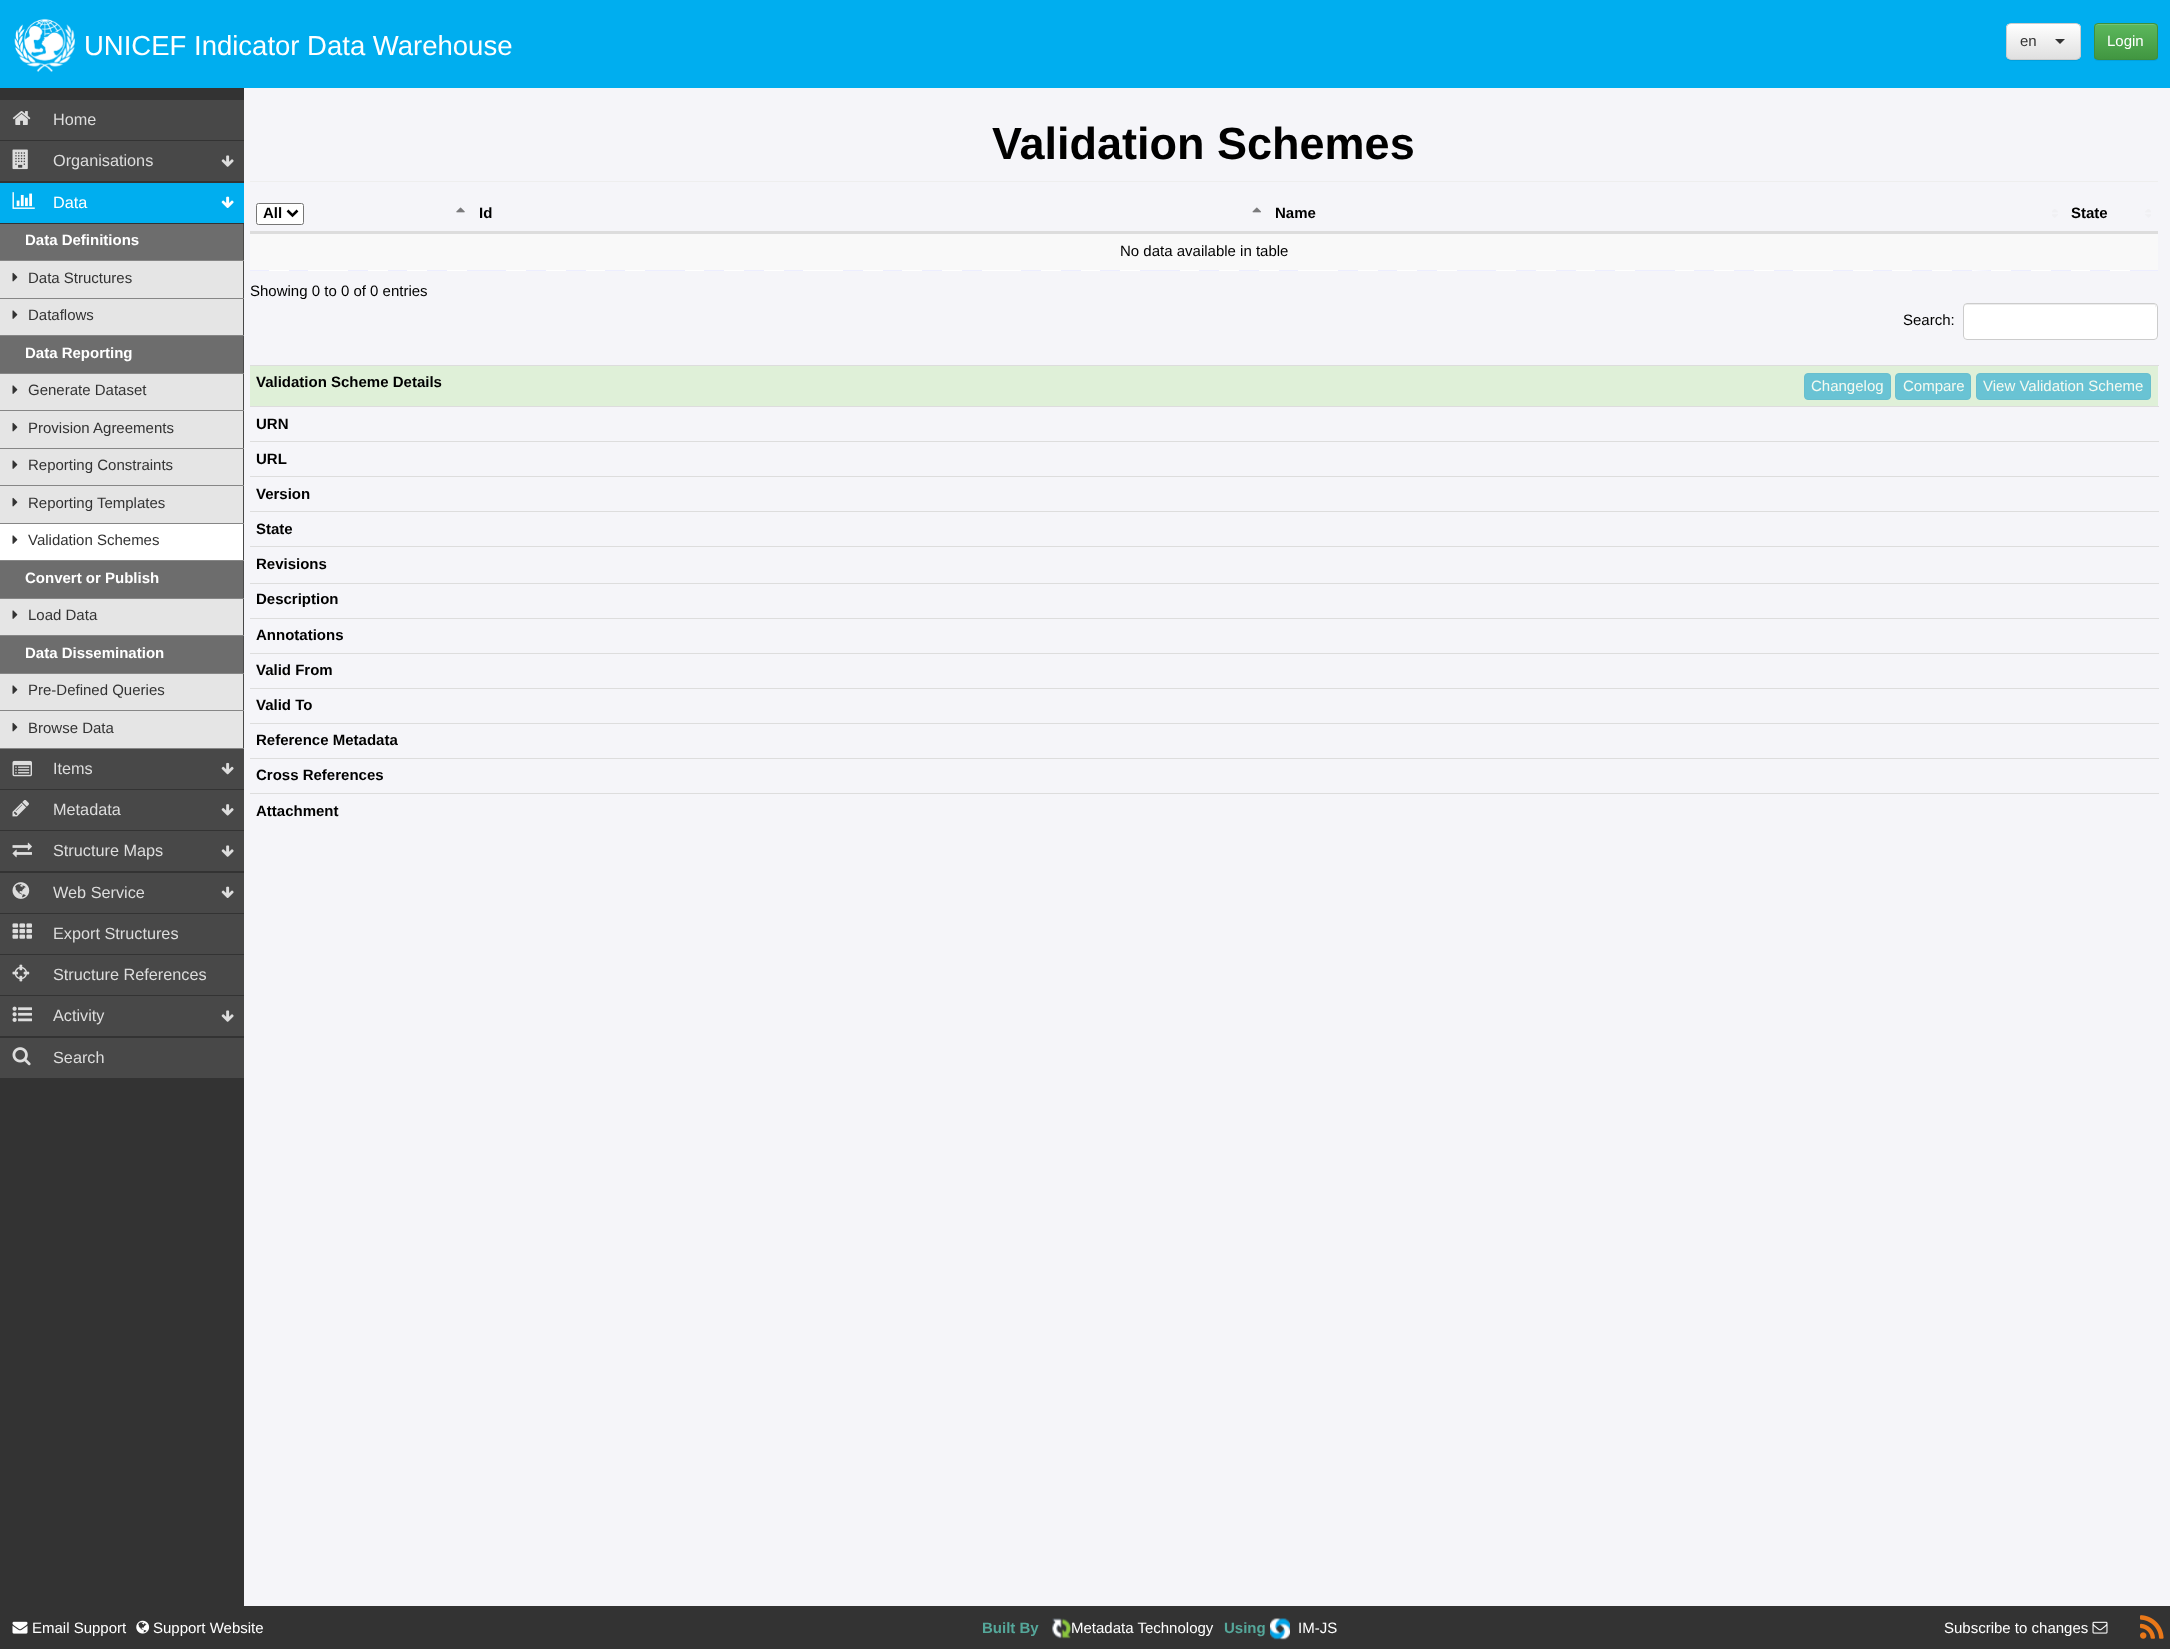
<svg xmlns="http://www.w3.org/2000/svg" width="2170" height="1649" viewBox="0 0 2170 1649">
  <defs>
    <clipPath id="clip1"><rect x="2006" y="23" width="75" height="37" rx="5"/></clipPath>
    <linearGradient id="g1" gradientUnits="userSpaceOnUse" x1="2044" y1="24" x2="2044" y2="59"><stop offset="0" stop-color="rgb(255,255,255)"/><stop offset="1" stop-color="rgb(224,224,224)"/></linearGradient>
    <clipPath id="clip2"><rect x="2094" y="23" width="64" height="37" rx="4"/></clipPath>
    <linearGradient id="g2" gradientUnits="userSpaceOnUse" x1="2126" y1="24" x2="2126" y2="59"><stop offset="0" stop-color="rgb(92,184,92)"/><stop offset="1" stop-color="rgb(65,150,65)"/></linearGradient>
    <linearGradient id="g3" gradientUnits="userSpaceOnUse" x1="718" y1="739" x2="1707" y2="-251"><stop offset="0" stop-color="rgb(237,238,255)"/><stop offset="0.01" stop-color="rgb(237,238,255)"/><stop offset="0.01" stop-color="rgb(255,255,255)"/><stop offset="0.02" stop-color="rgb(255,255,255)"/><stop offset="0.02" stop-color="rgb(237,238,255)"/><stop offset="0.03" stop-color="rgb(237,238,255)"/><stop offset="0.03" stop-color="rgb(255,255,255)"/><stop offset="0.04" stop-color="rgb(255,255,255)"/><stop offset="0.04" stop-color="rgb(237,238,255)"/><stop offset="0.04" stop-color="rgb(237,238,255)"/><stop offset="0.04" stop-color="rgb(255,255,255)"/><stop offset="0.05" stop-color="rgb(255,255,255)"/><stop offset="0.05" stop-color="rgb(237,238,255)"/><stop offset="0.06" stop-color="rgb(237,238,255)"/><stop offset="0.06" stop-color="rgb(255,255,255)"/><stop offset="0.07" stop-color="rgb(255,255,255)"/><stop offset="0.07" stop-color="rgb(237,238,255)"/><stop offset="0.08" stop-color="rgb(237,238,255)"/><stop offset="0.08" stop-color="rgb(255,255,255)"/><stop offset="0.09" stop-color="rgb(255,255,255)"/><stop offset="0.09" stop-color="rgb(237,238,255)"/><stop offset="0.1" stop-color="rgb(237,238,255)"/><stop offset="0.1" stop-color="rgb(255,255,255)"/><stop offset="0.11" stop-color="rgb(255,255,255)"/><stop offset="0.11" stop-color="rgb(237,238,255)"/><stop offset="0.12" stop-color="rgb(237,238,255)"/><stop offset="0.12" stop-color="rgb(255,255,255)"/><stop offset="0.12" stop-color="rgb(255,255,255)"/><stop offset="0.12" stop-color="rgb(237,238,255)"/><stop offset="0.13" stop-color="rgb(237,238,255)"/><stop offset="0.13" stop-color="rgb(255,255,255)"/><stop offset="0.14" stop-color="rgb(255,255,255)"/><stop offset="0.14" stop-color="rgb(237,238,255)"/><stop offset="0.15" stop-color="rgb(237,238,255)"/><stop offset="0.15" stop-color="rgb(255,255,255)"/><stop offset="0.16" stop-color="rgb(255,255,255)"/><stop offset="0.16" stop-color="rgb(237,238,255)"/><stop offset="0.17" stop-color="rgb(237,238,255)"/><stop offset="0.17" stop-color="rgb(255,255,255)"/><stop offset="0.18" stop-color="rgb(255,255,255)"/><stop offset="0.18" stop-color="rgb(237,238,255)"/><stop offset="0.19" stop-color="rgb(237,238,255)"/><stop offset="0.19" stop-color="rgb(255,255,255)"/><stop offset="0.2" stop-color="rgb(255,255,255)"/><stop offset="0.2" stop-color="rgb(237,238,255)"/><stop offset="0.21" stop-color="rgb(237,238,255)"/><stop offset="0.21" stop-color="rgb(255,255,255)"/><stop offset="0.21" stop-color="rgb(255,255,255)"/><stop offset="0.21" stop-color="rgb(237,238,255)"/><stop offset="0.22" stop-color="rgb(237,238,255)"/><stop offset="0.22" stop-color="rgb(255,255,255)"/><stop offset="0.23" stop-color="rgb(255,255,255)"/><stop offset="0.23" stop-color="rgb(237,238,255)"/><stop offset="0.24" stop-color="rgb(237,238,255)"/><stop offset="0.24" stop-color="rgb(255,255,255)"/><stop offset="0.25" stop-color="rgb(255,255,255)"/><stop offset="0.25" stop-color="rgb(237,238,255)"/><stop offset="0.26" stop-color="rgb(237,238,255)"/><stop offset="0.26" stop-color="rgb(255,255,255)"/><stop offset="0.27" stop-color="rgb(255,255,255)"/><stop offset="0.27" stop-color="rgb(237,238,255)"/><stop offset="0.28" stop-color="rgb(237,238,255)"/><stop offset="0.28" stop-color="rgb(255,255,255)"/><stop offset="0.29" stop-color="rgb(255,255,255)"/><stop offset="0.29" stop-color="rgb(237,238,255)"/><stop offset="0.29" stop-color="rgb(237,238,255)"/><stop offset="0.29" stop-color="rgb(255,255,255)"/><stop offset="0.3" stop-color="rgb(255,255,255)"/><stop offset="0.3" stop-color="rgb(237,238,255)"/><stop offset="0.31" stop-color="rgb(237,238,255)"/><stop offset="0.31" stop-color="rgb(255,255,255)"/><stop offset="0.32" stop-color="rgb(255,255,255)"/><stop offset="0.32" stop-color="rgb(237,238,255)"/><stop offset="0.33" stop-color="rgb(237,238,255)"/><stop offset="0.33" stop-color="rgb(255,255,255)"/><stop offset="0.34" stop-color="rgb(255,255,255)"/><stop offset="0.34" stop-color="rgb(237,238,255)"/><stop offset="0.35" stop-color="rgb(237,238,255)"/><stop offset="0.35" stop-color="rgb(255,255,255)"/><stop offset="0.36" stop-color="rgb(255,255,255)"/><stop offset="0.36" stop-color="rgb(237,238,255)"/><stop offset="0.37" stop-color="rgb(237,238,255)"/><stop offset="0.37" stop-color="rgb(255,255,255)"/><stop offset="0.38" stop-color="rgb(255,255,255)"/><stop offset="0.38" stop-color="rgb(237,238,255)"/><stop offset="0.38" stop-color="rgb(237,238,255)"/><stop offset="0.38" stop-color="rgb(255,255,255)"/><stop offset="0.39" stop-color="rgb(255,255,255)"/><stop offset="0.39" stop-color="rgb(237,238,255)"/><stop offset="0.4" stop-color="rgb(237,238,255)"/><stop offset="0.4" stop-color="rgb(255,255,255)"/><stop offset="0.41" stop-color="rgb(255,255,255)"/><stop offset="0.41" stop-color="rgb(237,238,255)"/><stop offset="0.42" stop-color="rgb(237,238,255)"/><stop offset="0.42" stop-color="rgb(255,255,255)"/><stop offset="0.43" stop-color="rgb(255,255,255)"/><stop offset="0.43" stop-color="rgb(237,238,255)"/><stop offset="0.44" stop-color="rgb(237,238,255)"/><stop offset="0.44" stop-color="rgb(255,255,255)"/><stop offset="0.45" stop-color="rgb(255,255,255)"/><stop offset="0.45" stop-color="rgb(237,238,255)"/><stop offset="0.46" stop-color="rgb(237,238,255)"/><stop offset="0.46" stop-color="rgb(255,255,255)"/><stop offset="0.46" stop-color="rgb(255,255,255)"/><stop offset="0.46" stop-color="rgb(237,238,255)"/><stop offset="0.47" stop-color="rgb(237,238,255)"/><stop offset="0.47" stop-color="rgb(255,255,255)"/><stop offset="0.48" stop-color="rgb(255,255,255)"/><stop offset="0.48" stop-color="rgb(237,238,255)"/><stop offset="0.49" stop-color="rgb(237,238,255)"/><stop offset="0.49" stop-color="rgb(255,255,255)"/><stop offset="0.5" stop-color="rgb(255,255,255)"/><stop offset="0.5" stop-color="rgb(237,238,255)"/><stop offset="0.51" stop-color="rgb(237,238,255)"/><stop offset="0.51" stop-color="rgb(255,255,255)"/><stop offset="0.52" stop-color="rgb(255,255,255)"/><stop offset="0.52" stop-color="rgb(237,238,255)"/><stop offset="0.53" stop-color="rgb(237,238,255)"/><stop offset="0.53" stop-color="rgb(255,255,255)"/><stop offset="0.54" stop-color="rgb(255,255,255)"/><stop offset="0.54" stop-color="rgb(237,238,255)"/><stop offset="0.54" stop-color="rgb(237,238,255)"/><stop offset="0.54" stop-color="rgb(255,255,255)"/><stop offset="0.55" stop-color="rgb(255,255,255)"/><stop offset="0.55" stop-color="rgb(237,238,255)"/><stop offset="0.56" stop-color="rgb(237,238,255)"/><stop offset="0.56" stop-color="rgb(255,255,255)"/><stop offset="0.57" stop-color="rgb(255,255,255)"/><stop offset="0.57" stop-color="rgb(237,238,255)"/><stop offset="0.58" stop-color="rgb(237,238,255)"/><stop offset="0.58" stop-color="rgb(255,255,255)"/><stop offset="0.59" stop-color="rgb(255,255,255)"/><stop offset="0.59" stop-color="rgb(237,238,255)"/><stop offset="0.6" stop-color="rgb(237,238,255)"/><stop offset="0.6" stop-color="rgb(255,255,255)"/><stop offset="0.61" stop-color="rgb(255,255,255)"/><stop offset="0.61" stop-color="rgb(237,238,255)"/><stop offset="0.62" stop-color="rgb(237,238,255)"/><stop offset="0.62" stop-color="rgb(255,255,255)"/><stop offset="0.62" stop-color="rgb(255,255,255)"/><stop offset="0.62" stop-color="rgb(237,238,255)"/><stop offset="0.63" stop-color="rgb(237,238,255)"/><stop offset="0.63" stop-color="rgb(255,255,255)"/><stop offset="0.64" stop-color="rgb(255,255,255)"/><stop offset="0.64" stop-color="rgb(237,238,255)"/><stop offset="0.65" stop-color="rgb(237,238,255)"/><stop offset="0.65" stop-color="rgb(255,255,255)"/><stop offset="0.66" stop-color="rgb(255,255,255)"/><stop offset="0.66" stop-color="rgb(237,238,255)"/><stop offset="0.67" stop-color="rgb(237,238,255)"/><stop offset="0.67" stop-color="rgb(255,255,255)"/><stop offset="0.68" stop-color="rgb(255,255,255)"/><stop offset="0.68" stop-color="rgb(237,238,255)"/><stop offset="0.69" stop-color="rgb(237,238,255)"/><stop offset="0.69" stop-color="rgb(255,255,255)"/><stop offset="0.7" stop-color="rgb(255,255,255)"/><stop offset="0.7" stop-color="rgb(237,238,255)"/><stop offset="0.71" stop-color="rgb(237,238,255)"/><stop offset="0.71" stop-color="rgb(255,255,255)"/><stop offset="0.71" stop-color="rgb(255,255,255)"/><stop offset="0.71" stop-color="rgb(237,238,255)"/><stop offset="0.72" stop-color="rgb(237,238,255)"/><stop offset="0.72" stop-color="rgb(255,255,255)"/><stop offset="0.73" stop-color="rgb(255,255,255)"/><stop offset="0.73" stop-color="rgb(237,238,255)"/><stop offset="0.74" stop-color="rgb(237,238,255)"/><stop offset="0.74" stop-color="rgb(255,255,255)"/><stop offset="0.75" stop-color="rgb(255,255,255)"/><stop offset="0.75" stop-color="rgb(237,238,255)"/><stop offset="0.76" stop-color="rgb(237,238,255)"/><stop offset="0.76" stop-color="rgb(255,255,255)"/><stop offset="0.77" stop-color="rgb(255,255,255)"/><stop offset="0.77" stop-color="rgb(237,238,255)"/><stop offset="0.78" stop-color="rgb(237,238,255)"/><stop offset="0.78" stop-color="rgb(255,255,255)"/><stop offset="0.79" stop-color="rgb(255,255,255)"/><stop offset="0.79" stop-color="rgb(237,238,255)"/><stop offset="0.79" stop-color="rgb(237,238,255)"/><stop offset="0.79" stop-color="rgb(255,255,255)"/><stop offset="0.8" stop-color="rgb(255,255,255)"/><stop offset="0.8" stop-color="rgb(237,238,255)"/><stop offset="0.81" stop-color="rgb(237,238,255)"/><stop offset="0.81" stop-color="rgb(255,255,255)"/><stop offset="0.82" stop-color="rgb(255,255,255)"/><stop offset="0.82" stop-color="rgb(237,238,255)"/><stop offset="0.83" stop-color="rgb(237,238,255)"/><stop offset="0.83" stop-color="rgb(255,255,255)"/><stop offset="0.84" stop-color="rgb(255,255,255)"/><stop offset="0.84" stop-color="rgb(237,238,255)"/><stop offset="0.85" stop-color="rgb(237,238,255)"/><stop offset="0.85" stop-color="rgb(255,255,255)"/><stop offset="0.86" stop-color="rgb(255,255,255)"/><stop offset="0.86" stop-color="rgb(237,238,255)"/><stop offset="0.87" stop-color="rgb(237,238,255)"/><stop offset="0.87" stop-color="rgb(255,255,255)"/><stop offset="0.87" stop-color="rgb(255,255,255)"/><stop offset="0.88" stop-color="rgb(237,238,255)"/><stop offset="0.88" stop-color="rgb(237,238,255)"/><stop offset="0.88" stop-color="rgb(255,255,255)"/><stop offset="0.89" stop-color="rgb(255,255,255)"/><stop offset="0.89" stop-color="rgb(237,238,255)"/><stop offset="0.9" stop-color="rgb(237,238,255)"/><stop offset="0.9" stop-color="rgb(255,255,255)"/><stop offset="0.91" stop-color="rgb(255,255,255)"/><stop offset="0.91" stop-color="rgb(237,238,255)"/><stop offset="0.92" stop-color="rgb(237,238,255)"/><stop offset="0.92" stop-color="rgb(255,255,255)"/><stop offset="0.93" stop-color="rgb(255,255,255)"/><stop offset="0.93" stop-color="rgb(237,238,255)"/><stop offset="0.94" stop-color="rgb(237,238,255)"/><stop offset="0.94" stop-color="rgb(255,255,255)"/><stop offset="0.95" stop-color="rgb(255,255,255)"/><stop offset="0.95" stop-color="rgb(237,238,255)"/><stop offset="0.96" stop-color="rgb(237,238,255)"/><stop offset="0.96" stop-color="rgb(255,255,255)"/><stop offset="0.96" stop-color="rgb(255,255,255)"/><stop offset="0.96" stop-color="rgb(237,238,255)"/><stop offset="0.97" stop-color="rgb(237,238,255)"/><stop offset="0.97" stop-color="rgb(255,255,255)"/><stop offset="0.98" stop-color="rgb(255,255,255)"/><stop offset="0.98" stop-color="rgb(237,238,255)"/><stop offset="0.99" stop-color="rgb(237,238,255)"/><stop offset="0.99" stop-color="rgb(255,255,255)"/><stop offset="1" stop-color="rgb(255,255,255)"/></linearGradient>
  </defs>
  <rect width="100%" height="100%" fill="rgb(245,245,249)"/>
  <rect x="0" y="0" width="2170" height="88" fill="rgb(0,174,239)"/>
  <image x="14" y="18" width="61" height="54" href="pic1.png"/>
  <text x="84" y="55" font-family="Liberation Sans" font-size="27.5" fill="rgb(255,255,255)">UNICEF Indicator Data Warehouse</text>
  <rect x="2006" y="24" width="75" height="37" rx="5" fill="rgba(0,0,0,0.07)" filter="blur(0.5px)"/>
  <g clip-path="url(#clip1)">
    <rect x="2006" y="24" width="75" height="35" fill="url(#g1)"/>
  </g>
  <rect x="2006.5" y="23.5" width="74" height="36" rx="4.5" fill="none" stroke="rgb(204,204,204)"/>
  <text x="2020" y="46" font-family="Liberation Sans" font-size="15" fill="rgb(51,51,51)">en</text>
  <path d="M2055 39H2065L2060 44Z" fill="rgb(51,51,51)"/>
  <rect x="2094" y="24" width="64" height="37" rx="4" fill="rgba(0,0,0,0.07)" filter="blur(0.5px)"/>
  <g clip-path="url(#clip2)">
    <rect x="2094" y="24" width="64" height="35" fill="url(#g2)"/>
  </g>
  <path d="M2098 25H2154C2155 25 2156 26 2156 28C2156 22 2150 24 2144 24H2107C2101 24 2095 22 2095 28C2095 26 2096 25 2098 25Z" fill="rgb(116,195,116)"/>
  <rect x="2094.5" y="23.5" width="63" height="36" rx="3.5" fill="none" stroke="rgb(62,143,62)"/>
  <text x="2107" y="46" font-family="Liberation Sans" font-size="15" fill="rgb(255,255,255)">Login</text>
  <rect x="0" y="88" width="244" height="1518" fill="rgb(51,51,51)"/>
  <rect x="0" y="100" width="244" height="40" fill="rgb(72,72,72)"/>
  <image x="12" y="111" width="19" height="14" href="pic2.png"/>
  <text x="53" y="125" font-family="Liberation Sans" font-size="16.25" fill="rgb(221,221,221)">Home</text>
  <rect x="0" y="141" width="244" height="40" fill="rgb(72,72,72)"/>
  <image x="12" y="149" width="16" height="21" href="pic3.png"/>
  <text x="53" y="166" font-family="Liberation Sans" font-size="16.25" fill="rgb(221,221,221)">Organisations</text>
  <image x="221" y="155" width="13" height="12" href="pic4.png"/>
  <rect x="0" y="183" width="244" height="40" fill="rgb(0,174,239)"/>
  <image x="12" y="192" width="23" height="17" href="pic5.png"/>
  <text x="53" y="208" font-family="Liberation Sans" font-size="16.25" fill="rgb(255,255,255)">Data</text>
  <image x="221" y="196" width="13" height="12" href="pic6.png"/>
  <rect x="0" y="224" width="243" height="36" fill="rgb(109,109,109)"/>
  <rect x="243" y="224" width="1" height="525" fill="rgb(71,71,71)"/>
  <rect x="0" y="260" width="244" height="1" fill="rgb(134,134,134)"/>
  <text x="25" y="245" font-family="Liberation Sans" font-size="15" font-weight="bold" fill="rgb(255,255,255)">Data Definitions</text>
  <rect x="0" y="261" width="243" height="37" fill="rgb(229,229,229)"/>
  <rect x="0" y="298" width="244" height="1" fill="rgb(134,134,134)"/>
  <image x="12" y="272" width="6" height="10" href="pic7.png"/>
  <text x="28" y="283" font-family="Liberation Sans" font-size="15" fill="rgb(51,51,51)">Data Structures</text>
  <rect x="0" y="299" width="243" height="36" fill="rgb(229,229,229)"/>
  <rect x="0" y="335" width="244" height="1" fill="rgb(134,134,134)"/>
  <image x="12" y="310" width="6" height="9" href="pic8.png"/>
  <text x="28" y="320" font-family="Liberation Sans" font-size="15" fill="rgb(51,51,51)">Dataflows</text>
  <rect x="0" y="336" width="243" height="37" fill="rgb(109,109,109)"/>
  <rect x="0" y="373" width="244" height="1" fill="rgb(134,134,134)"/>
  <text x="25" y="358" font-family="Liberation Sans" font-size="15" font-weight="bold" fill="rgb(255,255,255)">Data Reporting</text>
  <rect x="0" y="374" width="243" height="36" fill="rgb(229,229,229)"/>
  <rect x="0" y="410" width="244" height="1" fill="rgb(134,134,134)"/>
  <image x="12" y="385" width="6" height="9" href="pic8.png"/>
  <text x="28" y="395" font-family="Liberation Sans" font-size="15" fill="rgb(51,51,51)">Generate Dataset</text>
  <rect x="0" y="411" width="243" height="37" fill="rgb(229,229,229)"/>
  <rect x="0" y="448" width="244" height="1" fill="rgb(134,134,134)"/>
  <image x="12" y="422" width="6" height="10" href="pic7.png"/>
  <text x="28" y="433" font-family="Liberation Sans" font-size="15" fill="rgb(51,51,51)">Provision Agreements</text>
  <rect x="0" y="449" width="243" height="36" fill="rgb(229,229,229)"/>
  <rect x="0" y="485" width="244" height="1" fill="rgb(134,134,134)"/>
  <image x="12" y="460" width="6" height="9" href="pic8.png"/>
  <text x="28" y="470" font-family="Liberation Sans" font-size="15" fill="rgb(51,51,51)">Reporting Constraints</text>
  <rect x="0" y="486" width="243" height="37" fill="rgb(229,229,229)"/>
  <rect x="0" y="523" width="244" height="1" fill="rgb(134,134,134)"/>
  <image x="12" y="497" width="6" height="10" href="pic7.png"/>
  <text x="28" y="508" font-family="Liberation Sans" font-size="15" fill="rgb(51,51,51)">Reporting Templates</text>
  <rect x="0" y="524" width="243" height="36" fill="rgb(255,255,255)"/>
  <rect x="0" y="560" width="244" height="1" fill="rgb(134,134,134)"/>
  <image x="12" y="535" width="6" height="9" href="pic9.png"/>
  <text x="28" y="545" font-family="Liberation Sans" font-size="15" fill="rgb(51,51,51)">Validation Schemes</text>
  <rect x="0" y="561" width="243" height="37" fill="rgb(109,109,109)"/>
  <rect x="0" y="598" width="244" height="1" fill="rgb(134,134,134)"/>
  <text x="25" y="583" font-family="Liberation Sans" font-size="15" font-weight="bold" fill="rgb(255,255,255)">Convert or Publish</text>
  <rect x="0" y="599" width="243" height="36" fill="rgb(229,229,229)"/>
  <rect x="0" y="635" width="244" height="1" fill="rgb(134,134,134)"/>
  <image x="12" y="610" width="6" height="9" href="pic8.png"/>
  <text x="28" y="620" font-family="Liberation Sans" font-size="15" fill="rgb(51,51,51)">Load Data</text>
  <rect x="0" y="636" width="243" height="37" fill="rgb(109,109,109)"/>
  <rect x="0" y="673" width="244" height="1" fill="rgb(134,134,134)"/>
  <text x="25" y="658" font-family="Liberation Sans" font-size="15" font-weight="bold" fill="rgb(255,255,255)">Data Dissemination</text>
  <rect x="0" y="674" width="243" height="36" fill="rgb(229,229,229)"/>
  <rect x="0" y="710" width="244" height="1" fill="rgb(134,134,134)"/>
  <image x="12" y="685" width="6" height="9" href="pic8.png"/>
  <text x="28" y="695" font-family="Liberation Sans" font-size="15" fill="rgb(51,51,51)">Pre-Defined Queries</text>
  <rect x="0" y="711" width="243" height="37" fill="rgb(229,229,229)"/>
  <rect x="0" y="748" width="244" height="1" fill="rgb(134,134,134)"/>
  <image x="12" y="722" width="6" height="10" href="pic7.png"/>
  <text x="28" y="733" font-family="Liberation Sans" font-size="15" fill="rgb(51,51,51)">Browse Data</text>
  <rect x="0" y="749" width="244" height="40" fill="rgb(72,72,72)"/>
  <image x="12" y="760" width="20" height="17" href="pic10.png"/>
  <text x="53" y="774" font-family="Liberation Sans" font-size="16.25" fill="rgb(221,221,221)">Items</text>
  <image x="221" y="762" width="13" height="13" href="pic11.png"/>
  <rect x="0" y="790" width="244" height="40" fill="rgb(72,72,72)"/>
  <image x="12" y="800" width="17" height="17" href="pic12.png"/>
  <text x="53" y="815" font-family="Liberation Sans" font-size="16.25" fill="rgb(221,221,221)">Metadata</text>
  <image x="221" y="804" width="13" height="12" href="pic13.png"/>
  <rect x="0" y="831" width="244" height="40" fill="rgb(72,72,72)"/>
  <image x="12" y="842" width="20" height="16" href="pic14.png"/>
  <text x="53" y="856" font-family="Liberation Sans" font-size="16.25" fill="rgb(221,221,221)">Structure Maps</text>
  <image x="221" y="845" width="13" height="12" href="pic4.png"/>
  <rect x="0" y="873" width="244" height="40" fill="rgb(72,72,72)"/>
  <image x="12" y="882" width="18" height="17" href="pic15.png"/>
  <text x="53" y="898" font-family="Liberation Sans" font-size="16.25" fill="rgb(221,221,221)">Web Service</text>
  <image x="221" y="886" width="13" height="12" href="pic16.png"/>
  <rect x="0" y="914" width="244" height="40" fill="rgb(72,72,72)"/>
  <image x="12" y="923" width="20" height="16" href="pic17.png"/>
  <text x="53" y="939" font-family="Liberation Sans" font-size="16.25" fill="rgb(221,221,221)">Export Structures</text>
  <rect x="0" y="955" width="244" height="40" fill="rgb(72,72,72)"/>
  <image x="12" y="964" width="18" height="18" href="pic18.png"/>
  <text x="53" y="980" font-family="Liberation Sans" font-size="16.25" fill="rgb(221,221,221)">Structure References</text>
  <rect x="0" y="996" width="244" height="40" fill="rgb(72,72,72)"/>
  <image x="12" y="1006" width="20" height="16" href="pic19.png"/>
  <text x="53" y="1021" font-family="Liberation Sans" font-size="16.25" fill="rgb(221,221,221)">Activity</text>
  <image x="221" y="1010" width="13" height="12" href="pic4.png"/>
  <rect x="0" y="1038" width="244" height="40" fill="rgb(72,72,72)"/>
  <image x="12" y="1047" width="19" height="19" href="pic20.png"/>
  <text x="53" y="1063" font-family="Liberation Sans" font-size="16.25" fill="rgb(221,221,221)">Search</text>
  <text x="992" y="159" font-family="Liberation Sans" font-size="45" font-weight="bold" fill="rgb(0,0,0)">Validation Schemes</text>
  <rect x="250" y="181" width="1908" height="1" fill="rgb(238,238,238)"/>
  <rect x="250" y="231" width="1908" height="3" fill="rgb(221,221,221)"/>
  <rect x="256.5" y="203.5" width="47" height="21" rx="2" fill="rgb(255,255,255)" stroke="rgb(118,118,118)"/>
  <path d="M287.5 210.5L292.5 215.5L297.5 210.5" fill="none" stroke="rgb(0,0,0)" stroke-width="2.5"/>
  <text x="263" y="218" font-family="Liberation Sans" font-size="15" font-weight="bold" fill="rgb(0,0,0)">All</text>
  <image x="456" y="207" width="9" height="6" href="pic21.png"/>
  <text x="479" y="218" font-family="Liberation Sans" font-size="15" font-weight="bold" fill="rgb(0,0,0)">Id</text>
  <image x="1252" y="207" width="9" height="6" href="pic22.png"/>
  <text x="1275" y="218" font-family="Liberation Sans" font-size="15" font-weight="bold" fill="rgb(0,0,0)">Name</text>
  <image x="2052" y="209" width="6" height="9" href="pic23.png"/>
  <text x="2071" y="218" font-family="Liberation Sans" font-size="15" font-weight="bold" fill="rgb(0,0,0)">State</text>
  <image x="2145" y="209" width="6" height="9" href="pic24.png"/>
  <rect x="250" y="270" width="1908" height="1" fill="url(#g3)"/>
  <rect x="250" y="234" width="1908" height="36" fill="rgb(249,249,249)"/>
  <g font-family="Liberation Sans" font-size="15" fill="rgb(0,0,0)">
    <text x="1120" y="256">No data available in table</text>
    <text x="250" y="296">Showing 0 to 0 of 0 entries</text>
    <text x="1903" y="325">Search:</text>
  </g>
  <rect x="1963" y="303" width="195" height="37" rx="4" fill="rgb(255,255,255)"/>
  <path d="M1966 305H2155V306L2156 308C2156 306 2156 304 2154 304H1966C1964 304 1964 306 1964 308C1964 306 1965 305 1966 305Z" fill="rgb(236,236,236)"/>
  <rect x="1963.5" y="303.5" width="194" height="36" rx="3.5" fill="none" stroke="rgb(204,204,204)"/>
  <rect x="250" y="366" width="1908" height="40" fill="rgb(223,240,216)"/>
  <rect x="250" y="365" width="1909" height="1" fill="rgb(221,221,221)"/>
  <text x="256" y="387" font-family="Liberation Sans" font-size="15" font-weight="bold" fill="rgb(0,0,0)">Validation Scheme Details</text>
  <rect x="1804.5" y="373.5" width="86" height="26" rx="3.5" fill="rgb(105,195,212)" stroke="rgb(104,191,206)"/>
  <text x="1811" y="391" font-family="Liberation Sans" font-size="15" fill="rgb(244,250,241)">Changelog</text>
  <rect x="1895.5" y="373.5" width="75" height="26" rx="3.5" fill="rgb(105,195,212)" stroke="rgb(104,191,206)"/>
  <text x="1903" y="391" font-family="Liberation Sans" font-size="15" fill="rgb(244,250,241)">Compare</text>
  <rect x="1976.5" y="373.5" width="174" height="26" rx="3.5" fill="rgb(105,195,212)" stroke="rgb(104,191,206)"/>
  <text x="1983" y="391" font-family="Liberation Sans" font-size="15" fill="rgb(244,250,241)">View Validation Scheme</text>
  <rect x="250" y="406" width="1909" height="1" fill="rgb(221,221,221)"/>
  <text x="256" y="429" font-family="Liberation Sans" font-size="15" font-weight="bold" fill="rgb(0,0,0)">URN</text>
  <rect x="250" y="441" width="1909" height="1" fill="rgb(221,221,221)"/>
  <text x="256" y="464" font-family="Liberation Sans" font-size="15" font-weight="bold" fill="rgb(0,0,0)">URL</text>
  <rect x="250" y="476" width="1909" height="1" fill="rgb(221,221,221)"/>
  <text x="256" y="499" font-family="Liberation Sans" font-size="15" font-weight="bold" fill="rgb(0,0,0)">Version</text>
  <rect x="250" y="511" width="1909" height="1" fill="rgb(221,221,221)"/>
  <text x="256" y="534" font-family="Liberation Sans" font-size="15" font-weight="bold" fill="rgb(0,0,0)">State</text>
  <rect x="250" y="546" width="1909" height="1" fill="rgb(221,221,221)"/>
  <text x="256" y="569" font-family="Liberation Sans" font-size="15" font-weight="bold" fill="rgb(0,0,0)">Revisions</text>
  <rect x="250" y="583" width="1909" height="1" fill="rgb(221,221,221)"/>
  <text x="256" y="604" font-family="Liberation Sans" font-size="15" font-weight="bold" fill="rgb(0,0,0)">Description</text>
  <rect x="250" y="618" width="1909" height="1" fill="rgb(221,221,221)"/>
  <text x="256" y="640" font-family="Liberation Sans" font-size="15" font-weight="bold" fill="rgb(0,0,0)">Annotations</text>
  <rect x="250" y="653" width="1909" height="1" fill="rgb(221,221,221)"/>
  <text x="256" y="675" font-family="Liberation Sans" font-size="15" font-weight="bold" fill="rgb(0,0,0)">Valid From</text>
  <rect x="250" y="688" width="1909" height="1" fill="rgb(221,221,221)"/>
  <text x="256" y="710" font-family="Liberation Sans" font-size="15" font-weight="bold" fill="rgb(0,0,0)">Valid To</text>
  <rect x="250" y="723" width="1909" height="1" fill="rgb(221,221,221)"/>
  <text x="256" y="745" font-family="Liberation Sans" font-size="15" font-weight="bold" fill="rgb(0,0,0)">Reference Metadata</text>
  <rect x="250" y="758" width="1909" height="1" fill="rgb(221,221,221)"/>
  <text x="256" y="780" font-family="Liberation Sans" font-size="15" font-weight="bold" fill="rgb(0,0,0)">Cross References</text>
  <rect x="250" y="793" width="1909" height="1" fill="rgb(221,221,221)"/>
  <text x="256" y="816" font-family="Liberation Sans" font-size="15" font-weight="bold" fill="rgb(0,0,0)">Attachment</text>
  <rect x="0" y="1606" width="2170" height="43" fill="rgb(51,51,51)"/>
  <image x="12" y="1621" width="16" height="13" href="pic25.png"/>
  <text x="32" y="1633" font-family="Liberation Sans" font-size="15" fill="rgb(255,255,255)">Email Support</text>
  <image x="136" y="1620" width="14" height="14" href="pic26.png"/>
  <text x="153" y="1633" font-family="Liberation Sans" font-size="15" fill="rgb(255,255,255)">Support Website</text>
  <text x="982" y="1633" font-family="Liberation Sans" font-size="15" font-weight="bold" fill="rgb(85,167,154)">Built By</text>
  <image x="1051" y="1618" width="21" height="21" href="pic27.png"/>
  <text x="1071" y="1633" font-family="Liberation Sans" font-size="15" fill="rgb(255,255,255)">Metadata Technology</text>
  <text x="1224" y="1633" font-family="Liberation Sans" font-size="15" font-weight="bold" fill="rgb(85,167,154)">Using</text>
  <image x="1270" y="1618" width="20" height="22" href="pic28.png"/>
  <g font-family="Liberation Sans" font-size="15" fill="rgb(255,255,255)">
    <text x="1298" y="1633">IM-JS</text>
    <text x="1944" y="1633">Subscribe to changes</text>
  </g>
  <image x="2092" y="1621" width="16" height="13" href="pic29.png"/>
  <image x="2140" y="1615" width="24" height="24" href="pic30.png"/>
</svg>
